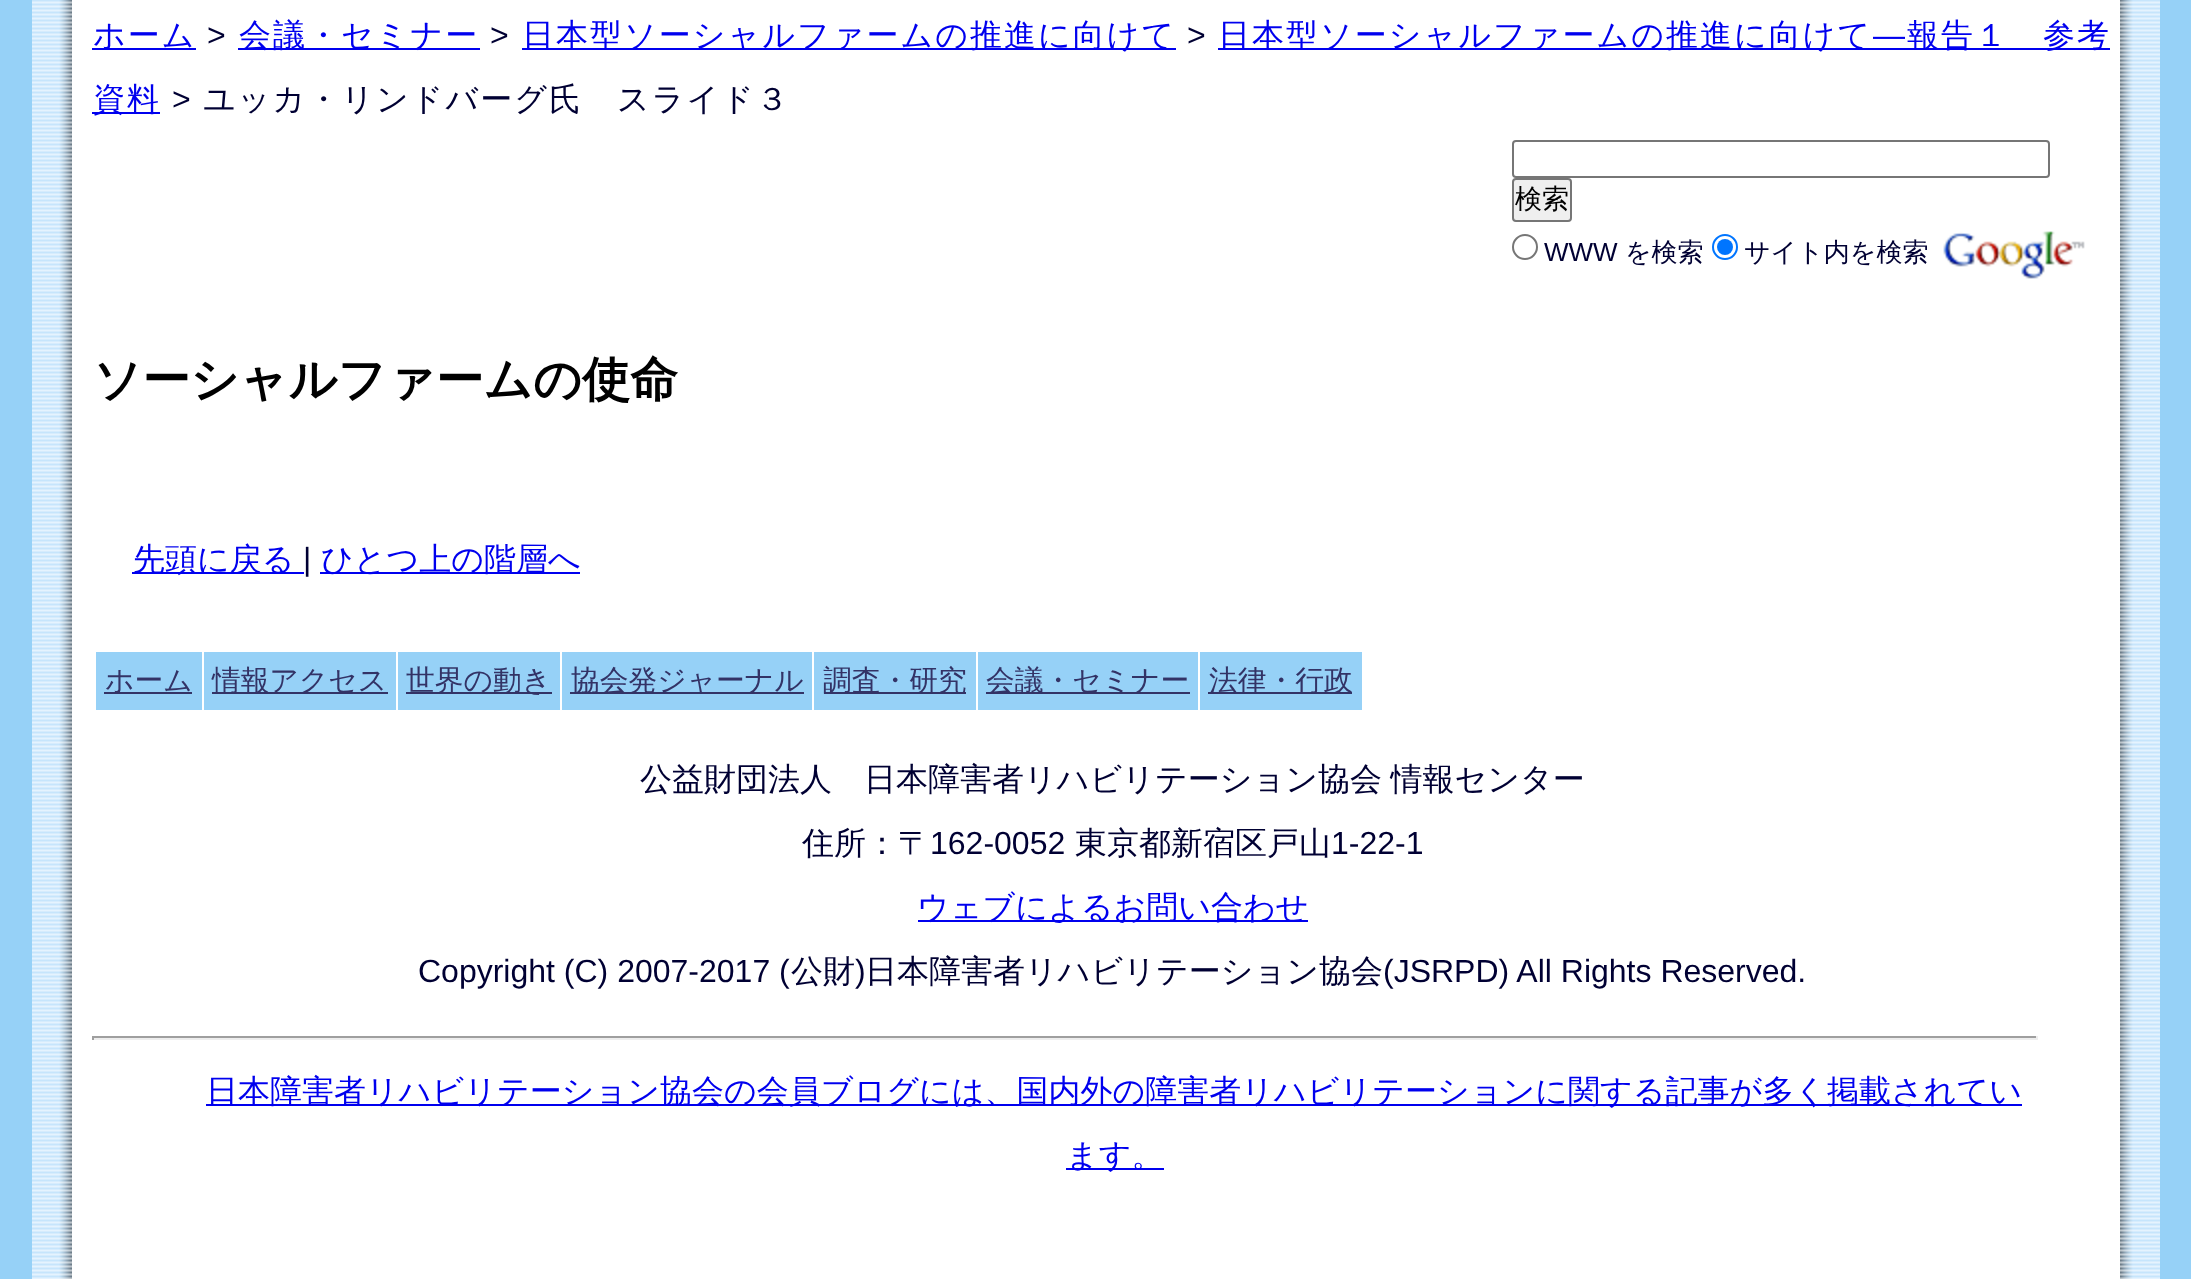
<svg xmlns="http://www.w3.org/2000/svg" width="2191" height="1279" viewBox="0 0 2191 1279">
  <rect width="100%" height="100%" fill="rgb(150,209,247)"/>
  <image x="32" y="0" width="40" height="1279" href="pic1.png"/>
  <image x="2120" y="0" width="40" height="1279" href="pic2.png"/>
  <rect x="72" y="0" width="2048" height="1279" fill="rgb(255,255,255)"/>
  <rect x="92" y="48" width="104" height="2" fill="rgb(0,0,238)"/>
  <text x="93" y="46" font-family="WenQuanYi Zen Hei" font-size="32" font-weight="500" letter-spacing="2" fill="rgb(0,0,238)">ホーム</text>
  <text x="207" y="46" font-family="Liberation Sans" font-size="32" letter-spacing="2" fill="rgb(0,0,51)">&gt;</text>
  <rect x="238" y="48" width="242" height="2" fill="rgb(0,0,238)"/>
  <text x="239" y="46" font-family="WenQuanYi Zen Hei" font-size="32" font-weight="500" letter-spacing="2" fill="rgb(0,0,238)">会議・セミナー</text>
  <text x="490" y="46" font-family="Liberation Sans" font-size="32" letter-spacing="2" fill="rgb(0,0,51)">&gt;</text>
  <rect x="522" y="48" width="654" height="2" fill="rgb(0,0,238)"/>
  <text x="522" y="46" font-family="WenQuanYi Zen Hei" font-size="32" font-weight="500" letter-spacing="2" fill="rgb(0,0,238)">日本型ソーシャルファームの推進に向けて</text>
  <text x="1187" y="46" font-family="Liberation Sans" font-size="32" letter-spacing="2" fill="rgb(0,0,51)">&gt;</text>
  <rect x="1218" y="48" width="892" height="2" fill="rgb(0,0,238)"/>
  <text x="1218" y="46" font-family="WenQuanYi Zen Hei" font-size="32" font-weight="500" letter-spacing="2" fill="rgb(0,0,238)">日本型ソーシャルファームの推進に向けて</text>
  <text x="1873" y="46" font-family="Liberation Sans" font-size="32" letter-spacing="2" fill="rgb(0,0,238)">―</text>
  <text x="1907" y="46" font-family="WenQuanYi Zen Hei" font-size="32" font-weight="500" letter-spacing="2" fill="rgb(0,0,238)">報告１　参考</text>
  <rect x="92" y="112" width="68" height="2" fill="rgb(0,0,238)"/>
  <text x="93" y="110" font-family="WenQuanYi Zen Hei" font-size="32" font-weight="500" letter-spacing="2" fill="rgb(0,0,238)">資料</text>
  <text x="172" y="110" font-family="Liberation Sans" font-size="32" letter-spacing="2" fill="rgb(0,0,51)">&gt;</text>
  <text x="203" y="110" font-family="WenQuanYi Zen Hei" font-size="32" font-weight="500" letter-spacing="2" fill="rgb(0,0,51)">ユッカ・リンドバーグ氏　スライド３</text>
  <rect x="1513" y="141" width="536" height="36" rx="3" fill="none" stroke="rgb(118,118,118)" stroke-width="2"/>
  <rect x="1513" y="179" width="58" height="42" rx="3" fill="rgb(239,239,239)" stroke="rgb(118,118,118)" stroke-width="2"/>
  <text x="1515" y="208" font-family="WenQuanYi Zen Hei" font-size="27" font-weight="500" fill="rgb(0,0,0)">検索</text>
  <circle cx="1525" cy="247" r="12" fill="none" stroke="rgb(118,118,118)" stroke-width="2"/>
  <text x="1544" y="261" font-family="Liberation Sans" font-size="26" fill="rgb(0,0,51)">WWW</text>
  <text x="1625" y="261" font-family="WenQuanYi Zen Hei" font-size="26" font-weight="500" fill="rgb(0,0,51)">を検索</text>
  <circle cx="1725" cy="247" r="12" fill="none" stroke="rgb(0,117,255)" stroke-width="2"/>
  <circle cx="1725" cy="247" r="8" fill="rgb(0,117,255)"/>
  <text x="1744" y="261" font-family="WenQuanYi Zen Hei" font-size="26" font-weight="500" fill="rgb(0,0,51)">サイト内を検索</text>
  <image x="1943" y="231" width="142" height="48" href="pic3.png"/>
  <text x="93" y="396" font-family="WenQuanYi Zen Hei" font-size="48" font-weight="bold" fill="rgb(0,0,0)">ソーシャルファームの使命</text>
  <rect x="132" y="572" width="172" height="2" fill="rgb(0,0,238)"/>
  <text x="133" y="570" font-family="WenQuanYi Zen Hei" font-size="32" font-weight="500" fill="rgb(0,0,238)">先頭に戻る</text>
  <text x="303" y="570" font-family="Liberation Sans" font-size="32" fill="rgb(0,0,51)">|</text>
  <rect x="320" y="572" width="260" height="2" fill="rgb(0,0,238)"/>
  <text x="321" y="570" font-family="WenQuanYi Zen Hei" font-size="32" font-weight="500" fill="rgb(0,0,238)">ひとつ上の階層へ</text>
  <rect x="96" y="652" width="106" height="58" fill="rgb(150,209,247)"/>
  <rect x="104" y="692" width="88" height="2" fill="rgb(51,51,102)"/>
  <text x="105" y="690" font-family="WenQuanYi Zen Hei" font-size="28.75" font-weight="500" fill="rgb(51,51,102)">ホーム</text>
  <rect x="204" y="652" width="192" height="58" fill="rgb(150,209,247)"/>
  <rect x="212" y="692" width="176" height="2" fill="rgb(51,51,102)"/>
  <text x="212" y="690" font-family="WenQuanYi Zen Hei" font-size="28.75" font-weight="500" fill="rgb(51,51,102)">情報アクセス</text>
  <rect x="398" y="652" width="162" height="58" fill="rgb(150,209,247)"/>
  <rect x="406" y="692" width="146" height="2" fill="rgb(51,51,102)"/>
  <text x="406" y="690" font-family="WenQuanYi Zen Hei" font-size="28.75" font-weight="500" fill="rgb(51,51,102)">世界の動き</text>
  <rect x="562" y="652" width="250" height="58" fill="rgb(150,209,247)"/>
  <rect x="570" y="692" width="234" height="2" fill="rgb(51,51,102)"/>
  <text x="571" y="690" font-family="WenQuanYi Zen Hei" font-size="28.75" font-weight="500" fill="rgb(51,51,102)">協会発ジャーナル</text>
  <rect x="814" y="652" width="162" height="58" fill="rgb(150,209,247)"/>
  <rect x="824" y="692" width="142" height="2" fill="rgb(51,51,102)"/>
  <text x="823" y="690" font-family="WenQuanYi Zen Hei" font-size="28.75" font-weight="500" fill="rgb(51,51,102)">調査・研究</text>
  <rect x="978" y="652" width="220" height="58" fill="rgb(150,209,247)"/>
  <rect x="986" y="692" width="204" height="2" fill="rgb(51,51,102)"/>
  <text x="986" y="690" font-family="WenQuanYi Zen Hei" font-size="28.75" font-weight="500" fill="rgb(51,51,102)">会議・セミナー</text>
  <rect x="1200" y="652" width="162" height="58" fill="rgb(150,209,247)"/>
  <rect x="1208" y="692" width="144" height="2" fill="rgb(51,51,102)"/>
  <text x="1209" y="690" font-family="WenQuanYi Zen Hei" font-size="28.75" font-weight="500" fill="rgb(51,51,102)">法律・行政</text>
  <g font-family="WenQuanYi Zen Hei" font-size="32" font-weight="500" fill="rgb(0,0,51)">
    <text x="640" y="790" word-spacing="-1">公益財団法人　日本障害者リハビリテーション協会 情報センター</text>
    <text x="802" y="854">住所：〒</text>
  </g>
  <text x="930" y="854" font-family="Liberation Sans" font-size="32" fill="rgb(0,0,51)">162-0052</text>
  <text x="1075" y="854" font-family="WenQuanYi Zen Hei" font-size="32" font-weight="500" fill="rgb(0,0,51)">東京都新宿区戸山</text>
  <text x="1331" y="854" font-family="Liberation Sans" font-size="32" fill="rgb(0,0,51)">1-22-1</text>
  <rect x="918" y="920" width="390" height="2" fill="rgb(0,0,238)"/>
  <text x="917" y="918" font-family="WenQuanYi Zen Hei" font-size="32" font-weight="500" fill="rgb(0,0,238)">ウェブによるお問い合わせ</text>
  <text x="418" y="982" font-family="Liberation Sans" font-size="32" fill="rgb(0,0,51)">Copyright (C) 2007-2017 (</text>
  <text x="791" y="982" font-family="WenQuanYi Zen Hei" font-size="32" font-weight="500" fill="rgb(0,0,51)">公財</text>
  <text x="855" y="982" font-family="Liberation Sans" font-size="32" fill="rgb(0,0,51)">)</text>
  <text x="865" y="982" font-family="WenQuanYi Zen Hei" font-size="32" font-weight="500" fill="rgb(0,0,51)">日本障害者リハビリテーション協会</text>
  <text x="1383" y="982" font-family="Liberation Sans" font-size="32" fill="rgb(0,0,51)">(JSRPD) All Rights Reserved.</text>
  <rect x="92" y="1036" width="1946" height="2" fill="rgb(159,159,159)"/>
  <rect x="2036" y="1036" width="2" height="4" fill="rgb(238,238,238)"/>
  <rect x="92" y="1038" width="1946" height="2" fill="rgb(238,238,238)"/>
  <rect x="92" y="1036" width="2" height="4" fill="rgb(159,159,159)"/>
  <rect x="206" y="1104" width="1816" height="2" fill="rgb(0,0,238)"/>
  <text x="206" y="1102" font-family="WenQuanYi Zen Hei" font-size="32" font-weight="500" fill="rgb(0,0,238)">日本障害者リハビリテーション協会の会員ブログには、国内外の障害者リハビリテーションに関する記事が多く掲載されてい</text>
  <rect x="1066" y="1168" width="98" height="2" fill="rgb(0,0,238)"/>
  <text x="1066" y="1166" font-family="WenQuanYi Zen Hei" font-size="32" font-weight="500" fill="rgb(0,0,238)">ます。</text>
</svg>
